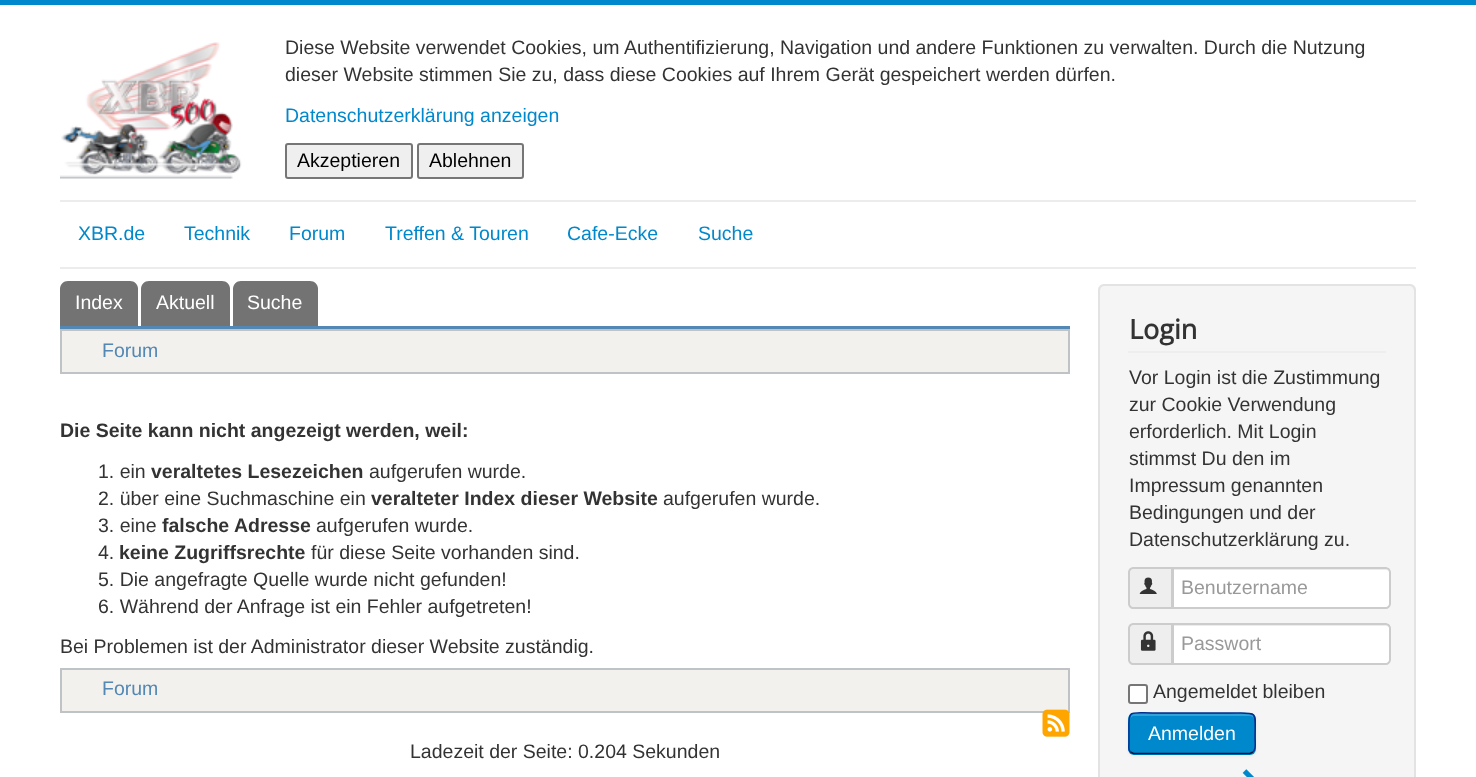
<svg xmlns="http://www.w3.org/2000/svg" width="1476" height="777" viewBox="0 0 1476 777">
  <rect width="100%" height="100%" fill="rgb(255,255,255)"/>
  <rect x="0" y="0" width="1476" height="5" fill="rgb(0,136,204)"/>
  <image x="60" y="42" width="182" height="137" href="pic1.png"/>
  <g font-family="Liberation Sans" font-size="19.5" fill="rgb(51,51,51)">
    <text>
      <tspan x="285" y="54">Diese Website verwendet Cookies, um Authentifizierung, Navigation und andere Funktionen zu verwalten. Durch die Nutzung</tspan>
      <tspan x="285" y="81">dieser Website stimmen Sie zu, dass diese Cookies auf Ihrem Gerät gespeichert werden dürfen.</tspan>
    </text>
  </g>
  <text x="285" y="122" font-family="Liberation Sans" font-size="19.5" fill="rgb(0,136,204)">Datenschutzerklärung anzeigen</text>
  <rect x="286" y="144" width="126" height="34" rx="2" fill="rgb(239,239,239)" stroke="rgb(118,118,118)" stroke-width="2"/>
  <text x="297" y="167" font-family="Liberation Sans" font-size="19.5" fill="rgb(0,0,0)">Akzeptieren</text>
  <rect x="418" y="144" width="105" height="34" rx="2" fill="rgb(239,239,239)" stroke="rgb(118,118,118)" stroke-width="2"/>
  <text x="429" y="167" font-family="Liberation Sans" font-size="19.5" fill="rgb(0,0,0)">Ablehnen</text>
  <rect x="60" y="200" width="1356" height="2" fill="rgb(236,236,236)"/>
  <rect x="60" y="267" width="1356" height="2" fill="rgb(236,236,236)"/>
  <g font-family="Liberation Sans" font-size="19.5" fill="rgb(0,136,204)">
    <text x="78" y="240">XBR.de</text>
    <text x="184" y="240">Technik</text>
    <text x="289" y="240">Forum</text>
    <text x="385" y="240">Treffen &amp; Touren</text>
    <text x="567" y="240">Cafe-Ecke</text>
    <text x="698" y="240">Suche</text>
  </g>
  <rect x="60" y="326" width="1010" height="3" fill="rgb(83,136,180)"/>
  <path d="M68 281H130C134.5 281 138 284.5 138 289V326H60V289C60 284.5 63.5 281 68 281Z" fill="rgb(115,115,115)"/>
  <text x="75" y="309" font-family="Liberation Sans" font-size="19.5" fill="rgb(255,255,255)">Index</text>
  <path d="M149 281H222C226.5 281 230 284.5 230 289V326H141V289C141 284.5 144.5 281 149 281Z" fill="rgb(115,115,115)"/>
  <text x="156" y="309" font-family="Liberation Sans" font-size="19.5" fill="rgb(255,255,255)">Aktuell</text>
  <path d="M241 281H310C314.5 281 318 284.5 318 289V326H233V289C233 284.5 236.5 281 241 281Z" fill="rgb(115,115,115)"/>
  <text x="247" y="309" font-family="Liberation Sans" font-size="19.5" fill="rgb(255,255,255)">Suche</text>
  <rect x="61" y="330" width="1008" height="43" fill="rgb(242,241,238)" stroke="rgb(191,195,198)" stroke-width="2"/>
  <text x="102" y="357" font-family="Liberation Sans" font-size="19.5" fill="rgb(83,136,180)">Forum</text>
  <text x="60" y="437" font-family="Liberation Sans" font-size="19.5" font-weight="bold" fill="rgb(51,51,51)">Die Seite kann nicht angezeigt werden, weil:</text>
  <text x="98" y="478" font-family="Liberation Sans" font-size="19.5" fill="rgb(51,51,51)">1. ein</text>
  <text x="151" y="478" font-family="Liberation Sans" font-size="19.5" font-weight="bold" fill="rgb(51,51,51)">veraltetes Lesezeichen</text>
  <g font-family="Liberation Sans" font-size="19.5" fill="rgb(51,51,51)">
    <text x="369" y="478">aufgerufen wurde.</text>
    <text x="98" y="505">2. über eine Suchmaschine ein</text>
  </g>
  <text x="371" y="505" font-family="Liberation Sans" font-size="19.5" font-weight="bold" fill="rgb(51,51,51)">veralteter Index dieser Website</text>
  <g font-family="Liberation Sans" font-size="19.5" fill="rgb(51,51,51)">
    <text x="663" y="505">aufgerufen wurde.</text>
    <text x="98" y="532">3. eine</text>
  </g>
  <text x="162" y="532" font-family="Liberation Sans" font-size="19.5" font-weight="bold" fill="rgb(51,51,51)">falsche Adresse</text>
  <g font-family="Liberation Sans" font-size="19.5" fill="rgb(51,51,51)">
    <text x="316" y="532">aufgerufen wurde.</text>
    <text x="98" y="559">4.</text>
  </g>
  <text x="119" y="559" font-family="Liberation Sans" font-size="19.5" font-weight="bold" fill="rgb(51,51,51)">keine Zugriffsrechte</text>
  <g font-family="Liberation Sans" font-size="19.5" fill="rgb(51,51,51)">
    <text x="311" y="559">für diese Seite vorhanden sind.</text>
    <text>
      <tspan x="98" y="586">5. Die angefragte Quelle wurde nicht gefunden!</tspan>
      <tspan x="98" y="613">6. Während der Anfrage ist ein Fehler aufgetreten!</tspan>
    </text>
    <text x="60" y="653">Bei Problemen ist der Administrator dieser Website zuständig.</text>
  </g>
  <rect x="61" y="669" width="1008" height="43" fill="rgb(242,241,238)" stroke="rgb(191,195,198)" stroke-width="2"/>
  <text x="102" y="695" font-family="Liberation Sans" font-size="19.5" fill="rgb(83,136,180)">Forum</text>
  <image x="1042" y="709" width="28" height="28" href="pic2.png"/>
  <text x="410" y="758" font-family="Liberation Sans" font-size="19.5" fill="rgb(51,51,51)">Ladezeit der Seite: 0.204 Sekunden</text>
  <rect x="1098" y="284" width="318" height="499" rx="6" fill="rgb(245,245,245)"/>
  <path d="M1104 286H1410C1412 286 1414 289 1414 291V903C1415 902 1415 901 1415 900V290C1415 287 1413 285 1410 285H1105C1102 285 1100 287 1100 290V291C1100 289 1102 286 1104 286Z" fill="rgb(233,233,233)"/>
  <rect x="1099" y="285" width="316" height="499" rx="5" fill="none" stroke="rgb(227,227,227)" stroke-width="2"/>
  <rect x="1128" y="351" width="258" height="2" fill="rgb(238,238,238)"/>
  <text x="1129" y="339" font-family="Open Sans" font-size="27" font-weight="bold" fill="rgb(51,51,51)">Login</text>
  <g font-family="Liberation Sans" font-size="19.5" fill="rgb(51,51,51)">
    <text>
      <tspan x="1129" y="384">Vor Login ist die Zustimmung</tspan>
      <tspan x="1129" y="411">zur Cookie Verwendung</tspan>
      <tspan x="1129" y="438">erforderlich. Mit Login</tspan>
      <tspan x="1129" y="465">stimmst Du den im</tspan>
      <tspan x="1129" y="492">Impressum genannten</tspan>
      <tspan x="1129" y="519">Bedingungen und der</tspan>
      <tspan x="1129" y="546">Datenschutzerklärung zu.</tspan>
    </text>
  </g>
  <path d="M1133 568H1172V608H1133C1131 608 1129 606 1129 604V572C1129 570 1131 568 1133 568Z" fill="rgb(238,238,238)" stroke="rgb(204,204,204)" stroke-width="2"/>
  <image x="1139" y="577" width="18" height="17" href="pic3.png"/>
  <path d="M1172 567H1386C1389 567 1391 569 1391 572V604C1391 607 1389 609 1386 609H1172Z" fill="rgb(255,255,255)"/>
  <path d="M1173 570H1386C1388 570 1389 571 1389 573V572C1389 570 1388 569 1386 569H1173Z" fill="rgb(236,236,236)"/>
  <path d="M1173 568H1386C1388 568 1390 570 1390 572V604C1390 606 1388 608 1386 608H1173Z" fill="none" stroke="rgb(204,204,204)" stroke-width="2"/>
  <text x="1181" y="594" font-family="Liberation Sans" font-size="19.5" fill="rgb(153,153,153)">Benutzername</text>
  <path d="M1133 624H1172V664H1133C1131 664 1129 662 1129 660V628C1129 626 1131 624 1133 624Z" fill="rgb(238,238,238)" stroke="rgb(204,204,204)" stroke-width="2"/>
  <image x="1140" y="631" width="16" height="20" href="pic4.png"/>
  <path d="M1172 623H1386C1389 623 1391 625 1391 628V660C1391 663 1389 665 1386 665H1172Z" fill="rgb(255,255,255)"/>
  <path d="M1173 626H1386C1388 626 1389 627 1389 628V627C1389 625 1388 624 1386 624H1173Z" fill="rgb(236,236,236)"/>
  <path d="M1173 624H1386C1388 624 1390 626 1390 628V660C1390 662 1388 664 1386 664H1173Z" fill="none" stroke="rgb(204,204,204)" stroke-width="2"/>
  <text x="1181" y="650" font-family="Liberation Sans" font-size="19.5" fill="rgb(153,153,153)">Passwort</text>
  <rect x="1129" y="685" width="18" height="18" rx="2" fill="rgb(255,255,255)" stroke="rgb(118,118,118)" stroke-width="2"/>
  <text x="1153" y="698" font-family="Liberation Sans" font-size="19.5" fill="rgb(51,51,51)">Angemeldet bleiben</text>
  <rect x="1128" y="714" width="128" height="42" rx="6" fill="rgba(0,0,0,0.05)" filter="blur(1.5px)"/>
  <rect x="1128" y="713" width="128" height="42" rx="6" fill="rgb(0,136,204)"/>
  <path d="M1134 716H1250C1252 716 1254 718 1254 720C1254 709 1234 714 1230 714H1154C1150 714 1130 709 1130 720C1130 718 1132 716 1134 716Z" fill="rgb(51,160,214)"/>
  <path d="M1253 752L1250 753.5H1133.5L1130.5 752" fill="none" stroke="rgb(0,22,65)" stroke-width="1.5"/>
  <path d="M1130.5 752C1128 750 1129 746.5 1129 743.5V733.5C1129 709 1126.5 713 1153 713H1230C1259.5 713 1255 709.5 1255 738.5C1255 742 1256.5 749 1253 752" fill="none" stroke="rgb(0,47,141)" stroke-width="1.5"/>
  <text x="1148" y="740" font-family="Liberation Sans" font-size="19.5" fill="rgb(255,255,255)">Anmelden</text>
  <image x="1242" y="769" width="12" height="8" href="pic5.png"/>
</svg>
